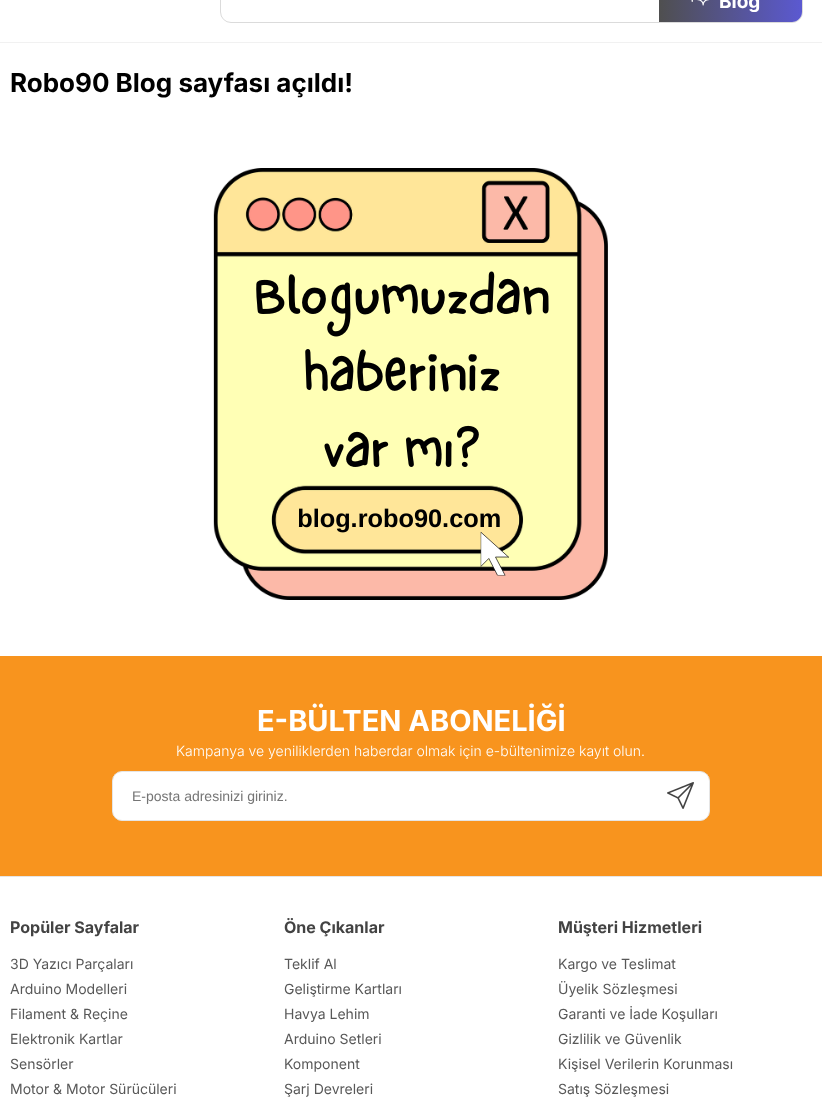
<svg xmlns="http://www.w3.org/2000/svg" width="822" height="1108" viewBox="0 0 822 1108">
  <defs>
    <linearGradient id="g1" gradientUnits="userSpaceOnUse" x1="659" y1="-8" x2="802" y2="-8"><stop offset="0" stop-color="rgb(79,79,79)"/><stop offset="1" stop-color="rgb(91,89,209)"/></linearGradient>
  </defs>
  <rect width="100%" height="100%" fill="rgb(255,255,255)"/>
  <rect x="0" y="42" width="822" height="1" fill="rgb(241,241,241)"/>
  <rect x="220.5" y="-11.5" width="582" height="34" rx="10.5" fill="none" stroke="rgb(219,219,219)"/>
  <path d="M659-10H792C797.5-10 802-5.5 802 0V12C802 17.5 797.5 22 792 22H659Z" fill="url(#g1)"/>
  <image x="691" y="0" width="18" height="6" href="pic1.png"/>
  <text x="719" y="8" font-family="Inter" font-size="19" font-weight="bold" fill="rgb(255,255,255)">Blog</text>
  <text x="10" y="92" font-family="Inter" font-size="26" font-weight="bold" fill="rgb(0,0,0)">Robo90 Blog sayfası açıldı!</text>
  <image x="213" y="168" width="395" height="432" href="pic2.png"/>
  <rect x="0" y="656" width="822" height="220" fill="rgb(248,148,30)"/>
  <text x="257" y="731" font-family="Inter" font-size="29" font-weight="bold" fill="rgb(255,255,255)">E-BÜLTEN ABONELİĞİ</text>
  <text x="176" y="756" font-family="Inter" font-size="14" font-weight="300" fill="rgb(255,255,255)">Kampanya ve yeniliklerden haberdar olmak için e-bültenimize kayıt olun.</text>
  <rect x="112.5" y="771.5" width="597" height="49" rx="9.5" fill="rgb(255,255,255)" stroke="rgb(229,229,229)"/>
  <text x="132" y="801" font-family="Liberation Sans" font-size="14" fill="rgb(117,117,117)">E-posta adresinizi giriniz.</text>
  <image x="667" y="782" width="27" height="27" href="pic3.png"/>
  <rect x="0" y="876" width="822" height="1" fill="rgb(229,229,229)"/>
  <text x="10" y="933" font-family="Inter" font-size="16" font-weight="bold" fill="rgb(67,67,67)">Popüler Sayfalar</text>
  <g font-family="Inter" font-size="14" fill="rgb(88,88,88)">
    <text>
      <tspan x="10" y="969">3D Yazıcı Parçaları</tspan>
      <tspan x="10" y="994">Arduino Modelleri</tspan>
      <tspan x="10" y="1019">Filament &amp; Reçine</tspan>
      <tspan x="10" y="1044">Elektronik Kartlar</tspan>
      <tspan x="10" y="1069">Sensörler</tspan>
      <tspan x="10" y="1094">Motor &amp; Motor Sürücüleri</tspan>
    </text>
  </g>
  <text x="284" y="933" font-family="Inter" font-size="16" font-weight="bold" fill="rgb(67,67,67)">Öne Çıkanlar</text>
  <g font-family="Inter" font-size="14" fill="rgb(88,88,88)">
    <text>
      <tspan x="284" y="969">Teklif Al</tspan>
      <tspan x="284" y="994">Geliştirme Kartları</tspan>
      <tspan x="284" y="1019">Havya Lehim</tspan>
      <tspan x="284" y="1044">Arduino Setleri</tspan>
      <tspan x="284" y="1069">Komponent</tspan>
      <tspan x="284" y="1094">Şarj Devreleri</tspan>
    </text>
  </g>
  <text x="558" y="933" font-family="Inter" font-size="16" font-weight="bold" fill="rgb(67,67,67)">Müşteri Hizmetleri</text>
  <g font-family="Inter" font-size="14" fill="rgb(88,88,88)">
    <text>
      <tspan x="558" y="969">Kargo ve Teslimat</tspan>
      <tspan x="558" y="994">Üyelik Sözleşmesi</tspan>
      <tspan x="558" y="1019">Garanti ve İade Koşulları</tspan>
      <tspan x="558" y="1044">Gizlilik ve Güvenlik</tspan>
      <tspan x="558" y="1069">Kişisel Verilerin Korunması</tspan>
      <tspan x="558" y="1094">Satış Sözleşmesi</tspan>
    </text>
  </g>
</svg>
